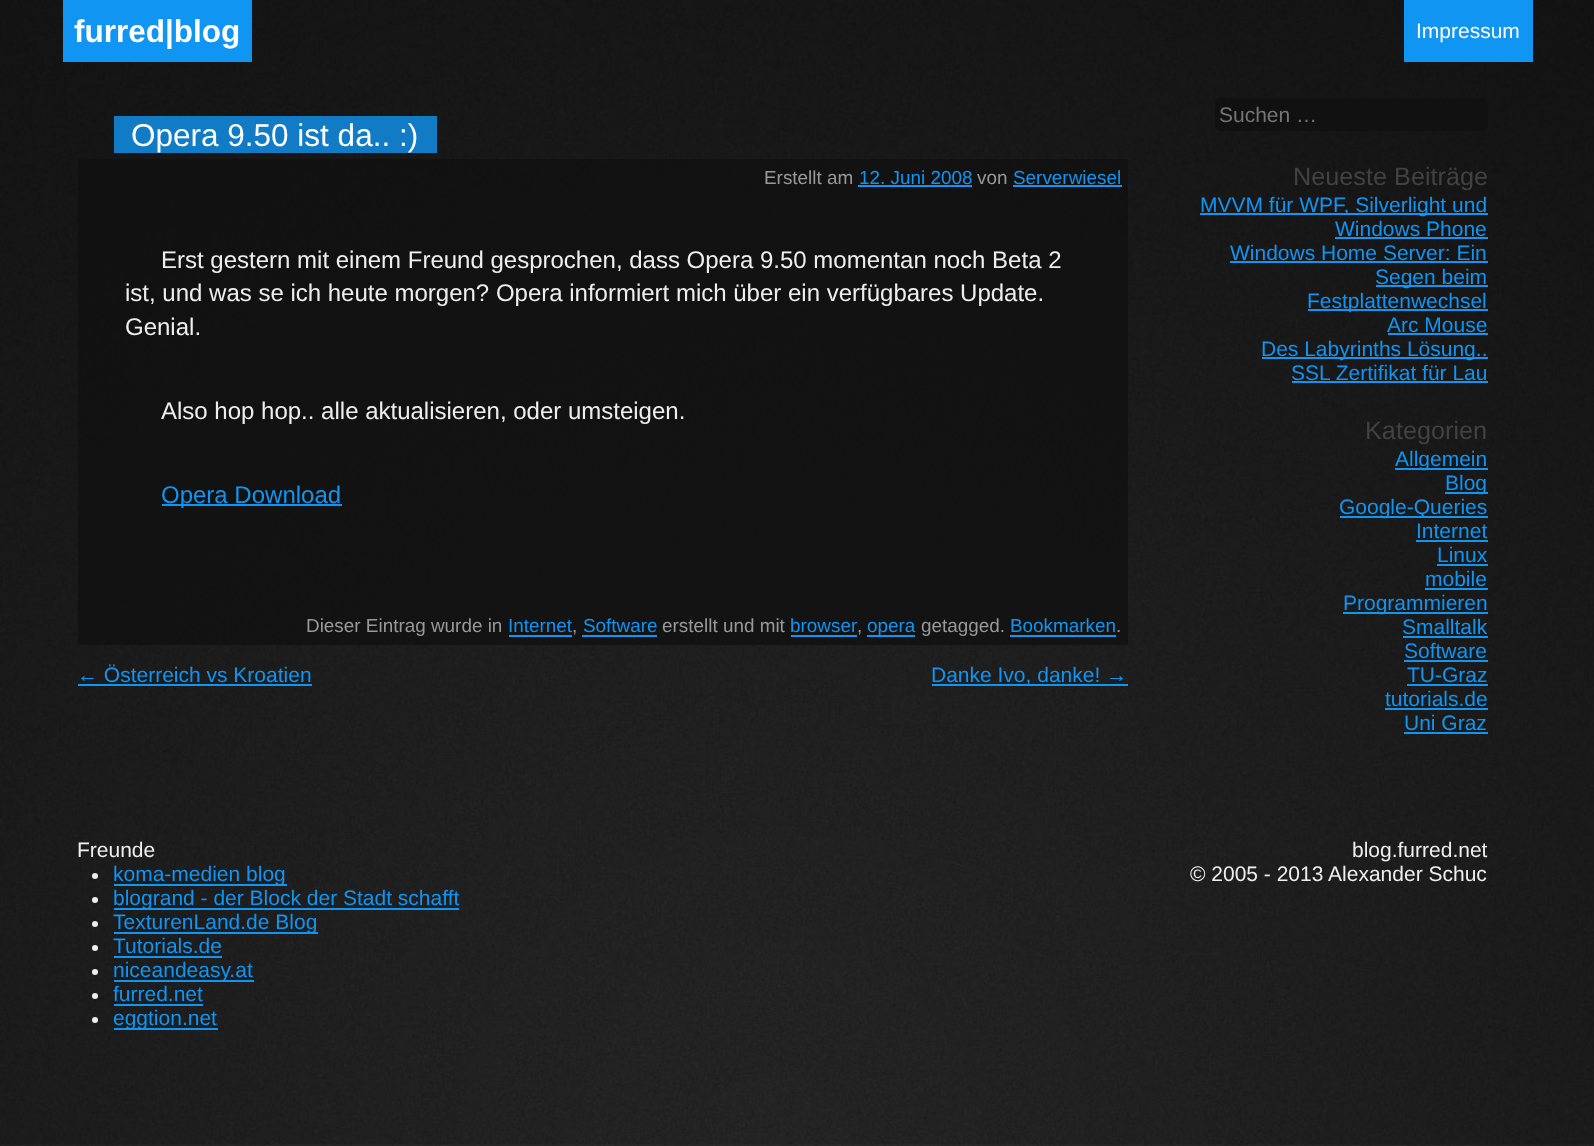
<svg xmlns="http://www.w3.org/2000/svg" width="1594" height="1146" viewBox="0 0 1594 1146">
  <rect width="100%" height="100%" fill="rgb(255,255,255)"/>
  <image x="0" y="0" width="1594" height="1146" href="pic1.png"/>
  <rect x="63" y="0" width="189" height="62" fill="rgb(16,149,242)"/>
  <text x="74" y="42" font-family="Liberation Sans" font-size="31.5" font-weight="bold" fill="rgb(255,255,255)">furred|blog</text>
  <rect x="1404" y="0" width="129" height="62" fill="rgb(16,149,242)"/>
  <text x="1416" y="38" font-family="Liberation Sans" font-size="21" fill="rgb(255,255,255)">Impressum</text>
  <rect x="114" y="116" width="323" height="37" fill="rgba(16,149,242,0.8)"/>
  <text x="131" y="146" font-family="Liberation Sans" font-size="31.5" fill="rgb(255,255,255)">Opera 9.50 ist da.. :)</text>
  <rect x="78" y="159" width="1050" height="36" fill="rgba(16,16,16,0.75)"/>
  <text x="764" y="184" font-family="Liberation Sans" font-size="18.9" fill="rgb(153,153,153)">Erstellt am</text>
  <text x="859" y="184" font-family="Liberation Sans" font-size="18.9" fill="rgb(16,149,242)">12. Juni 2008</text>
  <rect x="858" y="185" width="114" height="2" fill="rgb(16,149,242)"/>
  <text x="977" y="184" font-family="Liberation Sans" font-size="18.9" fill="rgb(153,153,153)">von</text>
  <text x="1013" y="184" font-family="Liberation Sans" font-size="18.9" fill="rgb(16,149,242)">Serverwiesel</text>
  <rect x="1013" y="185" width="109" height="2" fill="rgb(16,149,242)"/>
  <rect x="78" y="195" width="1050" height="414" fill="rgba(16,16,16,0.75)"/>
  <g font-family="Liberation Sans" font-size="24" fill="rgb(238,238,238)">
    <text x="161" y="268">Erst gestern mit einem Freund gesprochen, dass Opera 9.50 momentan noch Beta 2</text>
    <text>
      <tspan x="125" y="301">ist, und was se ich heute morgen? Opera informiert mich über ein verfügbares Update.</tspan>
      <tspan x="125" y="335">Genial.</tspan>
    </text>
    <text x="161" y="419">Also hop hop.. alle aktualisieren, oder umsteigen.</text>
  </g>
  <rect x="162" y="504" width="180" height="2" fill="rgb(16,149,242)"/>
  <text x="161" y="503" font-family="Liberation Sans" font-size="24" fill="rgb(16,149,242)">Opera Download</text>
  <rect x="78" y="609" width="1050" height="36" fill="rgba(16,16,16,0.75)"/>
  <text x="306" y="632" font-family="Liberation Sans" font-size="18.9" fill="rgb(153,153,153)">Dieser Eintrag wurde in</text>
  <text x="508" y="632" font-family="Liberation Sans" font-size="18.9" fill="rgb(16,149,242)">Internet</text>
  <rect x="509" y="635" width="63" height="2" fill="rgb(16,149,242)"/>
  <text x="572" y="632" font-family="Liberation Sans" font-size="18.9" fill="rgb(153,153,153)">,</text>
  <text x="583" y="632" font-family="Liberation Sans" font-size="18.9" fill="rgb(16,149,242)">Software</text>
  <rect x="582" y="635" width="75" height="2" fill="rgb(16,149,242)"/>
  <text x="662" y="632" font-family="Liberation Sans" font-size="18.9" fill="rgb(153,153,153)">erstellt und mit</text>
  <text x="790" y="632" font-family="Liberation Sans" font-size="18.9" fill="rgb(16,149,242)">browser</text>
  <rect x="791" y="635" width="66" height="2" fill="rgb(16,149,242)"/>
  <text x="857" y="632" font-family="Liberation Sans" font-size="18.9" fill="rgb(153,153,153)">,</text>
  <rect x="867" y="635" width="48" height="2" fill="rgb(16,149,242)"/>
  <text x="867" y="632" font-family="Liberation Sans" font-size="18.9" fill="rgb(16,149,242)">opera</text>
  <text x="921" y="632" font-family="Liberation Sans" font-size="18.9" fill="rgb(153,153,153)">getagged.</text>
  <text x="1010" y="632" font-family="Liberation Sans" font-size="18.9" fill="rgb(16,149,242)">Bookmarken</text>
  <rect x="1010" y="635" width="106" height="2" fill="rgb(16,149,242)"/>
  <text x="1116" y="632" font-family="Liberation Sans" font-size="18.9" fill="rgb(153,153,153)">.</text>
  <text x="77" y="682" font-family="Liberation Sans" font-size="21" fill="rgb(16,149,242)">← Österreich vs Kroatien</text>
  <rect x="78" y="684" width="234" height="2" fill="rgb(16,149,242)"/>
  <rect x="932" y="684" width="196" height="2" fill="rgb(16,149,242)"/>
  <text x="931" y="682" font-family="Liberation Sans" font-size="21" fill="rgb(16,149,242)">Danke Ivo, danke! →</text>
  <rect x="1215" y="98" width="273" height="33" rx="5" fill="rgba(16,16,16,0.75)"/>
  <text x="1219" y="122" font-family="Liberation Sans" font-size="21" fill="rgb(117,117,117)">Suchen …</text>
  <text x="1293" y="185" font-family="Liberation Sans" font-size="25.25" fill="rgb(66,66,66)">Neueste Beiträge</text>
  <rect x="1200" y="213" width="288" height="2" fill="rgb(16,149,242)"/>
  <g font-family="Liberation Sans" font-size="21" fill="rgb(16,149,242)">
    <text x="1200" y="212">MVVM für WPF, Silverlight und</text>
    <text x="1335" y="236">Windows Phone</text>
  </g>
  <rect x="1335" y="237" width="153" height="2" fill="rgb(16,149,242)"/>
  <text x="1230" y="260" font-family="Liberation Sans" font-size="21" fill="rgb(16,149,242)">Windows Home Server: Ein</text>
  <rect x="1230" y="261" width="258" height="2" fill="rgb(16,149,242)"/>
  <rect x="1376" y="285" width="112" height="2" fill="rgb(16,149,242)"/>
  <text x="1375" y="284" font-family="Liberation Sans" font-size="21" fill="rgb(16,149,242)">Segen beim</text>
  <rect x="1308" y="309" width="180" height="2" fill="rgb(16,149,242)"/>
  <g font-family="Liberation Sans" font-size="21" fill="rgb(16,149,242)">
    <text x="1307" y="308">Festplattenwechsel</text>
    <text x="1387" y="332">Arc Mouse</text>
  </g>
  <rect x="1388" y="333" width="100" height="2" fill="rgb(16,149,242)"/>
  <rect x="1262" y="357" width="226" height="2" fill="rgb(16,149,242)"/>
  <g font-family="Liberation Sans" font-size="21" fill="rgb(16,149,242)">
    <text x="1261" y="356">Des Labyrinths Lösung..</text>
    <text x="1291" y="380">SSL Zertifikat für Lau</text>
  </g>
  <rect x="1292" y="381" width="196" height="2" fill="rgb(16,149,242)"/>
  <text x="1365" y="439" font-family="Liberation Sans" font-size="25.25" fill="rgb(66,66,66)">Kategorien</text>
  <rect x="1395" y="468" width="93" height="2" fill="rgb(16,149,242)"/>
  <text x="1395" y="466" font-family="Liberation Sans" font-size="21" fill="rgb(16,149,242)">Allgemein</text>
  <rect x="1445" y="492" width="43" height="2" fill="rgb(16,149,242)"/>
  <text x="1445" y="490" font-family="Liberation Sans" font-size="21" fill="rgb(16,149,242)">Blog</text>
  <rect x="1340" y="516" width="148" height="2" fill="rgb(16,149,242)"/>
  <g font-family="Liberation Sans" font-size="21" fill="rgb(16,149,242)">
    <text x="1339" y="514">Google-Queries</text>
    <text x="1416" y="538">Internet</text>
  </g>
  <rect x="1416" y="540" width="72" height="2" fill="rgb(16,149,242)"/>
  <text x="1437" y="562" font-family="Liberation Sans" font-size="21" fill="rgb(16,149,242)">Linux</text>
  <rect x="1437" y="564" width="51" height="2" fill="rgb(16,149,242)"/>
  <text x="1425" y="586" font-family="Liberation Sans" font-size="21" fill="rgb(16,149,242)">mobile</text>
  <rect x="1425" y="588" width="63" height="2" fill="rgb(16,149,242)"/>
  <rect x="1343" y="612" width="145" height="2" fill="rgb(16,149,242)"/>
  <g font-family="Liberation Sans" font-size="21" fill="rgb(16,149,242)">
    <text x="1343" y="610">Programmieren</text>
    <text x="1402" y="634">Smalltalk</text>
  </g>
  <rect x="1403" y="636" width="85" height="2" fill="rgb(16,149,242)"/>
  <text x="1404" y="658" font-family="Liberation Sans" font-size="21" fill="rgb(16,149,242)">Software</text>
  <rect x="1404" y="660" width="84" height="2" fill="rgb(16,149,242)"/>
  <text x="1407" y="682" font-family="Liberation Sans" font-size="21" fill="rgb(16,149,242)">TU-Graz</text>
  <rect x="1407" y="684" width="81" height="2" fill="rgb(16,149,242)"/>
  <text x="1385" y="706" font-family="Liberation Sans" font-size="21" fill="rgb(16,149,242)">tutorials.de</text>
  <rect x="1385" y="708" width="103" height="2" fill="rgb(16,149,242)"/>
  <text x="1404" y="730" font-family="Liberation Sans" font-size="21" fill="rgb(16,149,242)">Uni Graz</text>
  <rect x="1404" y="732" width="84" height="2" fill="rgb(16,149,242)"/>
  <text x="77" y="857" font-family="Liberation Sans" font-size="21" fill="rgb(238,238,238)">Freunde</text>
  <circle cx="95" cy="876" r="3" fill="rgb(238,238,238)"/>
  <rect x="114" y="884" width="173" height="2" fill="rgb(16,149,242)"/>
  <text x="113" y="881" font-family="Liberation Sans" font-size="21" fill="rgb(16,149,242)">koma-medien blog</text>
  <circle cx="95" cy="900" r="3" fill="rgb(238,238,238)"/>
  <rect x="114" y="908" width="345" height="2" fill="rgb(16,149,242)"/>
  <text x="113" y="905" font-family="Liberation Sans" font-size="21" fill="rgb(16,149,242)">blogrand - der Block der Stadt schafft</text>
  <circle cx="95" cy="924" r="3" fill="rgb(238,238,238)"/>
  <rect x="114" y="932" width="204" height="2" fill="rgb(16,149,242)"/>
  <text x="113" y="929" font-family="Liberation Sans" font-size="21" fill="rgb(16,149,242)">TexturenLand.de Blog</text>
  <circle cx="95" cy="948" r="3" fill="rgb(238,238,238)"/>
  <text x="113" y="953" font-family="Liberation Sans" font-size="21" fill="rgb(16,149,242)">Tutorials.de</text>
  <rect x="114" y="956" width="108" height="2" fill="rgb(16,149,242)"/>
  <circle cx="95" cy="972" r="3" fill="rgb(238,238,238)"/>
  <rect x="114" y="980" width="140" height="2" fill="rgb(16,149,242)"/>
  <text x="113" y="977" font-family="Liberation Sans" font-size="21" fill="rgb(16,149,242)">niceandeasy.at</text>
  <circle cx="95" cy="996" r="3" fill="rgb(238,238,238)"/>
  <text x="113" y="1001" font-family="Liberation Sans" font-size="21" fill="rgb(16,149,242)">furred.net</text>
  <rect x="114" y="1004" width="89" height="2" fill="rgb(16,149,242)"/>
  <circle cx="95" cy="1020" r="3" fill="rgb(238,238,238)"/>
  <rect x="114" y="1028" width="104" height="2" fill="rgb(16,149,242)"/>
  <text x="113" y="1025" font-family="Liberation Sans" font-size="21" fill="rgb(16,149,242)">eggtion.net</text>
  <g font-family="Liberation Sans" font-size="21" fill="rgb(238,238,238)">
    <text x="1352" y="857">blog.furred.net</text>
    <text x="1190" y="881">© 2005 - 2013 Alexander Schuc</text>
  </g>
</svg>
